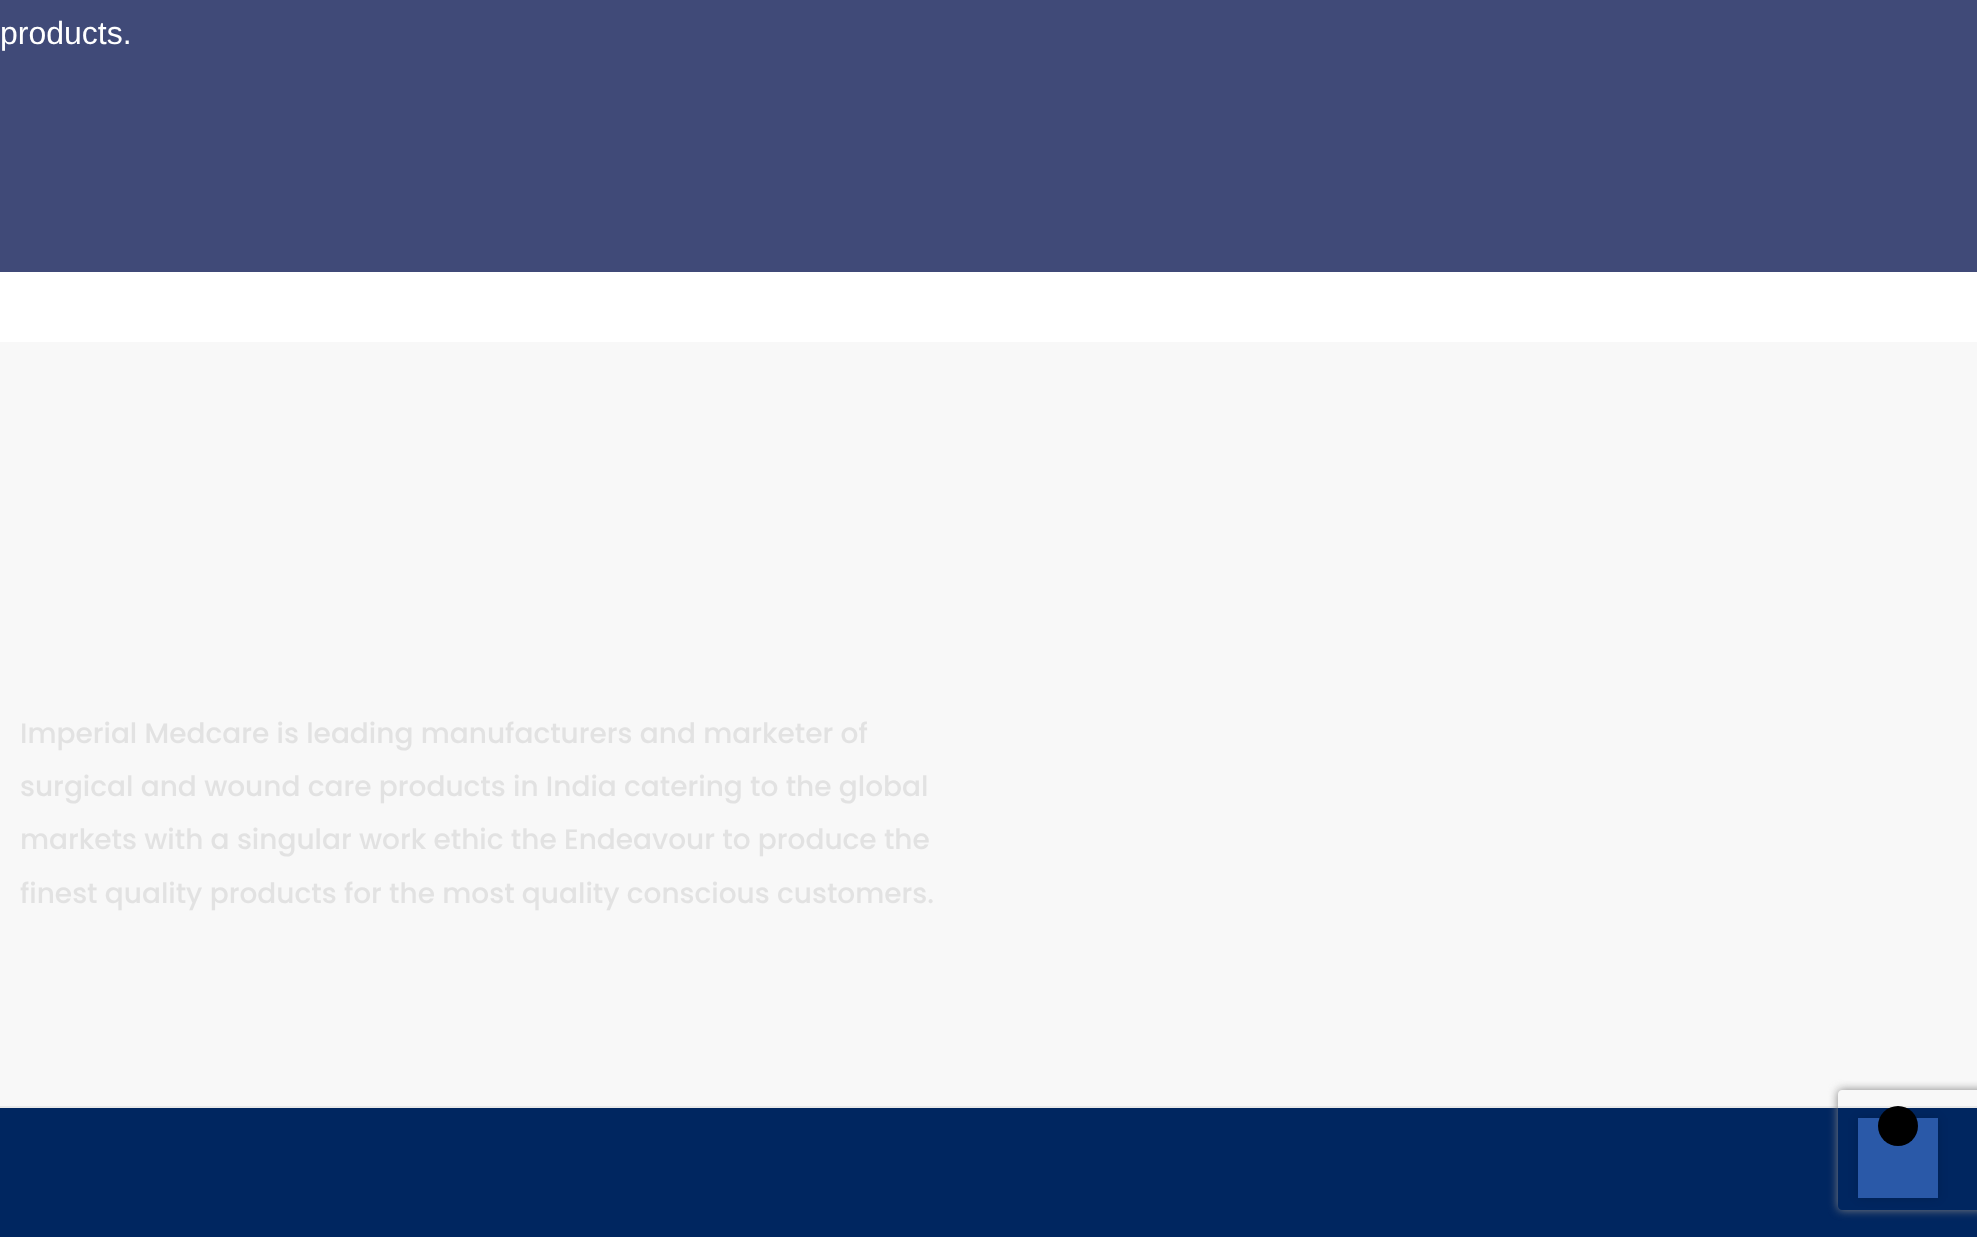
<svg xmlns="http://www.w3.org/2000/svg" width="1977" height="1237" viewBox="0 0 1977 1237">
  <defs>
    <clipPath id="clip1"><path d="M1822 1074H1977V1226H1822ZM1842 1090H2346C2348 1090 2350 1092 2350 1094V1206C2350 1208 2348 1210 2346 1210H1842C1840 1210 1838 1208 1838 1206V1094C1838 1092 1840 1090 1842 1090Z" clip-rule="evenodd"/></clipPath>
  </defs>
  <rect width="100%" height="100%" fill="rgb(255,255,255)"/>
  <rect x="0" y="0" width="1977" height="272" fill="rgb(64,74,120)"/>
  <text x="0" y="44" font-family="Liberation Sans" font-size="32" fill="rgb(255,255,255)">products.</text>
  <rect x="0" y="342" width="1977" height="764" fill="rgb(248,248,248)"/>
  <g font-family="Poppins" font-size="28" font-weight="500" fill="rgb(226,226,226)">
    <text>
      <tspan x="20" y="743">Imperial Medcare is leading manufacturers and marketer of</tspan>
      <tspan x="20" y="796">surgical and wound care products in India catering to the global</tspan>
      <tspan x="20" y="849">markets with a singular work ethic the Endeavour to produce the</tspan>
      <tspan x="20" y="903">finest quality products for the most quality conscious customers.</tspan>
    </text>
  </g>
  <rect x="0" y="1108" width="1977" height="129" fill="rgb(0,38,96)"/>
  <rect x="0" y="1106" width="1977" height="2" fill="rgb(233,233,233)"/>
  <g clip-path="url(#clip1)">
    <rect x="1838" y="1090" width="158" height="120" rx="4" fill="rgb(128,128,128)" filter="blur(5px)"/>
  </g>
  <rect x="1858" y="1118" width="80" height="80" fill="rgba(0,0,0,0.15)" filter="blur(5px)"/>
  <rect x="1858" y="1118" width="80" height="80" fill="rgb(42,89,168)"/>
  <circle cx="1898" cy="1126" r="20" fill="rgb(0,0,0)"/>
</svg>
